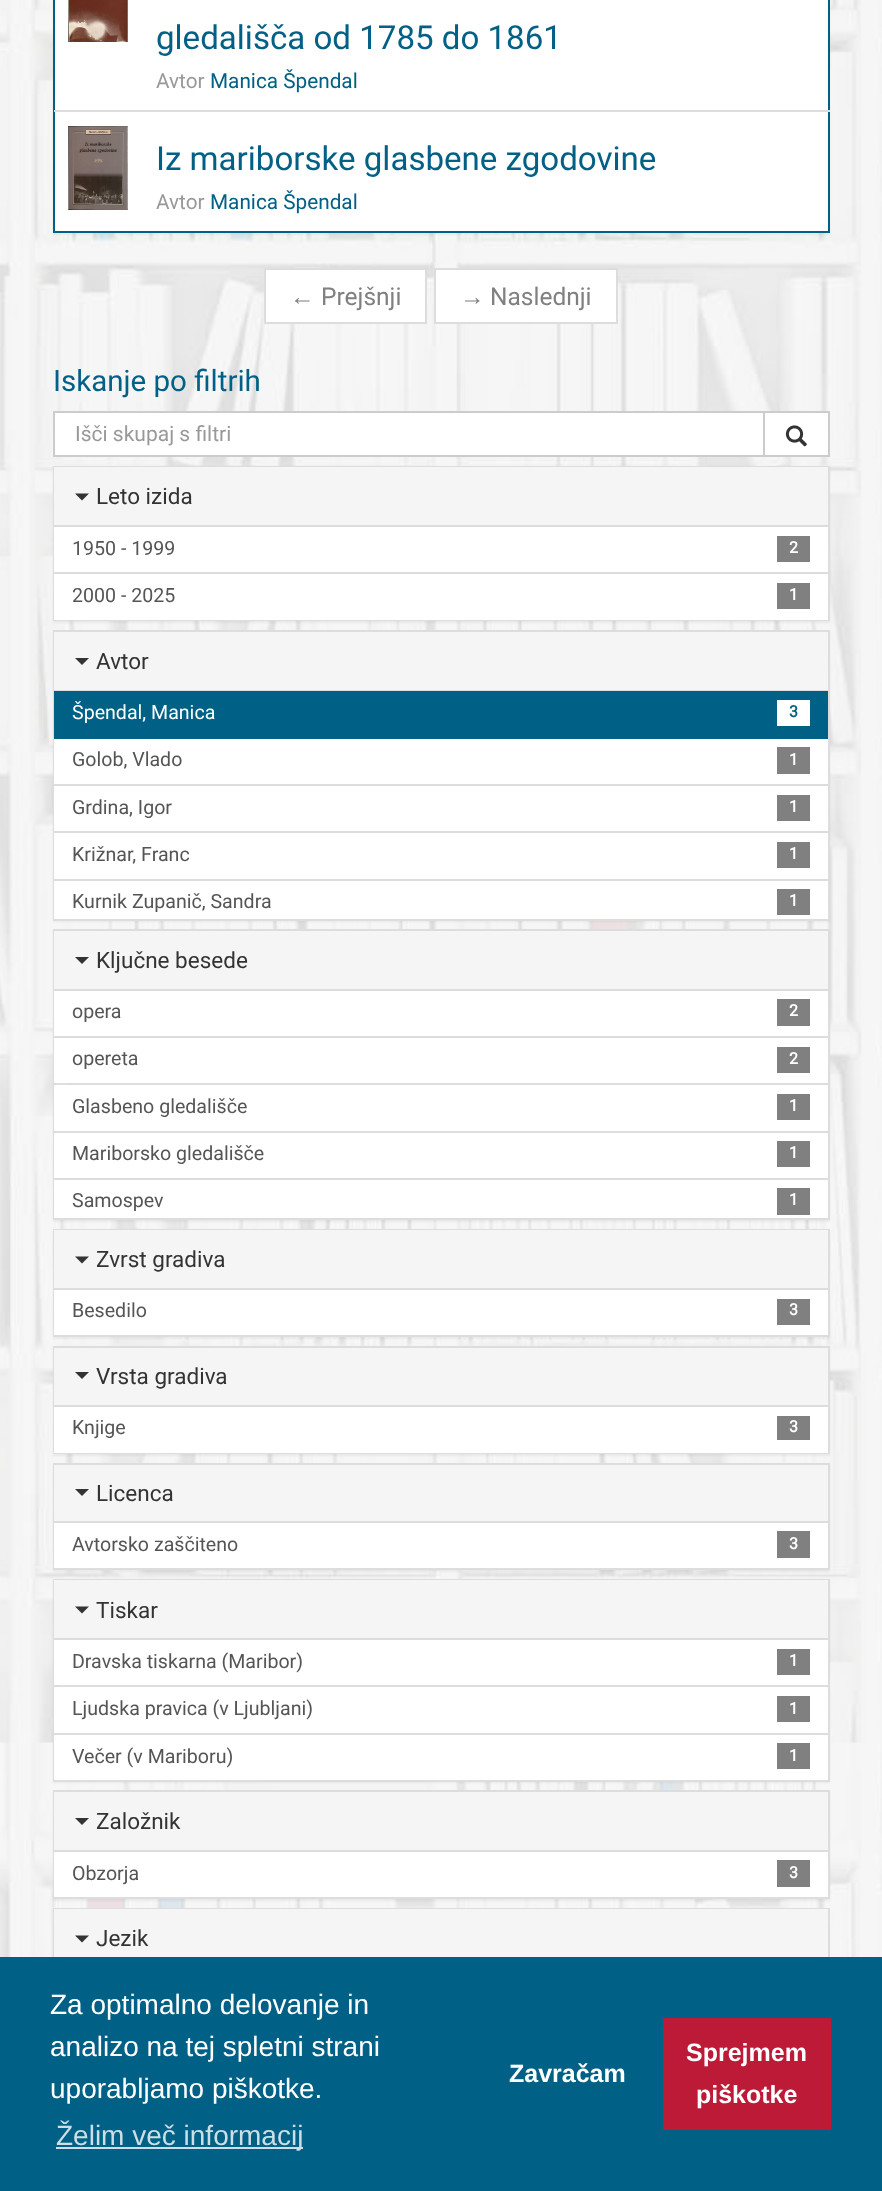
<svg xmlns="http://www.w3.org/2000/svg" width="882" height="2191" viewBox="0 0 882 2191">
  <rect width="100%" height="100%" fill="rgb(255,255,255)"/>
  <image x="0" y="0" width="882" height="1957" href="pic1.png"/>
  <rect x="53" y="-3" width="777" height="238" fill="rgba(0,0,0,0.05)" filter="blur(1px)"/>
  <rect x="54" y="-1" width="775" height="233" fill="rgb(255,255,255)" stroke="rgb(0,96,133)" stroke-width="2"/>
  <image x="68" y="0" width="60" height="42" href="pic2.png"/>
  <text x="156" y="49" font-family="Roboto" font-size="33.1" fill="rgb(0,96,133)">gledališča od 1785 do 1861</text>
  <text x="156" y="88" font-family="Roboto" font-size="20.75" fill="rgb(153,153,153)">Avtor</text>
  <text x="210" y="88" font-family="Roboto" font-size="20.75" fill="rgb(0,96,133)">Manica Špendal</text>
  <image x="68" y="126" width="60" height="84" href="pic3.png"/>
  <rect x="54" y="110" width="776" height="2" fill="rgb(221,221,221)"/>
  <text x="156" y="170" font-family="Roboto" font-size="33.1" fill="rgb(0,96,133)">Iz mariborske glasbene zgodovine</text>
  <text x="156" y="209" font-family="Roboto" font-size="20.75" fill="rgb(153,153,153)">Avtor</text>
  <text x="210" y="209" font-family="Roboto" font-size="20.75" fill="rgb(0,96,133)">Manica Špendal</text>
  <rect x="265" y="269" width="161" height="54" fill="rgb(255,255,255)" stroke="rgb(221,221,221)" stroke-width="2"/>
  <text x="290" y="305" font-family="Liberation Sans" font-size="24.5" fill="rgb(128,128,128)">←</text>
  <text x="321" y="305" font-family="Roboto" font-size="24.5" fill="rgb(128,128,128)">Prejšnji</text>
  <rect x="435" y="269" width="182" height="54" fill="rgb(255,255,255)" stroke="rgb(221,221,221)" stroke-width="2"/>
  <text x="460" y="305" font-family="Liberation Sans" font-size="24.5" fill="rgb(128,128,128)">→</text>
  <text x="490" y="305" font-family="Roboto" font-size="24.5" fill="rgb(128,128,128)">Naslednji</text>
  <text x="53" y="391" font-family="Roboto" font-size="29.5" fill="rgb(0,96,133)">Iskanje po filtrih</text>
  <rect x="54" y="412" width="710" height="44" fill="rgb(255,255,255)" stroke="rgb(204,204,204)" stroke-width="2"/>
  <text x="75" y="441" font-family="Roboto" font-size="21" fill="rgb(153,153,153)">Išči skupaj s filtri</text>
  <rect x="764" y="412" width="65" height="44" fill="rgb(255,255,255)" stroke="rgb(204,204,204)" stroke-width="2"/>
  <image x="785" y="425" width="22" height="22" href="pic4.png"/>
  <rect x="53" y="467" width="777" height="156" fill="rgba(0,0,0,0.05)" filter="blur(1px)"/>
  <rect x="54" y="467" width="775" height="153" fill="none" stroke="rgb(221,221,221)" stroke-width="2"/>
  <rect x="54" y="467" width="774" height="58" fill="rgb(245,245,245)"/>
  <path d="M75 493.5H89L82 500.5Z" fill="rgb(51,51,51)"/>
  <text x="96" y="504" font-family="Roboto" font-size="22.5" fill="rgb(51,51,51)">Leto izida</text>
  <rect x="54" y="525" width="774" height="2" fill="rgb(221,221,221)"/>
  <rect x="54" y="527" width="774" height="45" fill="rgb(255,255,255)"/>
  <text x="72" y="555" font-family="Roboto" font-size="19.6" fill="rgb(85,85,85)">1950 - 1999</text>
  <rect x="777" y="536" width="33" height="26" fill="rgb(128,128,128)"/>
  <text x="789" y="553" font-family="Roboto" font-size="16" font-weight="bold" fill="rgb(255,255,255)">2</text>
  <rect x="54" y="574" width="774" height="46" fill="rgb(255,255,255)"/>
  <rect x="54" y="572" width="774" height="2" fill="rgb(221,221,221)"/>
  <text x="72" y="602" font-family="Roboto" font-size="19.6" fill="rgb(85,85,85)">2000 - 2025</text>
  <rect x="777" y="583" width="33" height="26" fill="rgb(128,128,128)"/>
  <text x="789" y="600" font-family="Roboto" font-size="16" font-weight="bold" fill="rgb(255,255,255)">1</text>
  <rect x="53" y="632" width="777" height="290" fill="rgba(0,0,0,0.05)" filter="blur(1px)"/>
  <rect x="54" y="631" width="775" height="289" fill="none" stroke="rgb(221,221,221)" stroke-width="2"/>
  <rect x="54" y="632" width="774" height="58" fill="rgb(245,245,245)"/>
  <path d="M75 658H89L82 665Z" fill="rgb(51,51,51)"/>
  <text x="96" y="669" font-family="Roboto" font-size="22.5" fill="rgb(51,51,51)">Avtor</text>
  <rect x="54" y="690" width="774" height="1" fill="rgb(221,221,221)"/>
  <rect x="54" y="691" width="774" height="48" fill="rgb(0,96,133)"/>
  <text x="72" y="719" font-family="Roboto" font-size="19.6" fill="rgb(255,255,255)">Špendal, Manica</text>
  <rect x="777" y="700" width="33" height="26" fill="rgb(255,255,255)"/>
  <text x="789" y="717" font-family="Roboto" font-size="16" font-weight="bold" fill="rgb(0,96,133)">3</text>
  <rect x="54" y="739" width="774" height="45" fill="rgb(255,255,255)"/>
  <rect x="54" y="784" width="774" height="2" fill="rgb(221,221,221)"/>
  <text x="72" y="766" font-family="Roboto" font-size="19.6" fill="rgb(85,85,85)">Golob, Vlado</text>
  <rect x="777" y="747" width="33" height="27" fill="rgb(128,128,128)"/>
  <text x="789" y="765" font-family="Roboto" font-size="16" font-weight="bold" fill="rgb(255,255,255)">1</text>
  <rect x="54" y="786" width="774" height="45" fill="rgb(255,255,255)"/>
  <rect x="54" y="831" width="757" height="2" fill="rgb(221,221,221)"/>
  <text x="72" y="814" font-family="Roboto" font-size="19.6" fill="rgb(85,85,85)">Grdina, Igor</text>
  <rect x="777" y="795" width="33" height="26" fill="rgb(128,128,128)"/>
  <text x="789" y="812" font-family="Roboto" font-size="16" font-weight="bold" fill="rgb(255,255,255)">1</text>
  <rect x="54" y="833" width="774" height="46" fill="rgb(255,255,255)"/>
  <text x="72" y="861" font-family="Roboto" font-size="19.6" fill="rgb(85,85,85)">Križnar, Franc</text>
  <rect x="777" y="842" width="33" height="26" fill="rgb(128,128,128)"/>
  <text x="789" y="859" font-family="Roboto" font-size="16" font-weight="bold" fill="rgb(255,255,255)">1</text>
  <rect x="54" y="881" width="774" height="38" fill="rgb(255,255,255)"/>
  <rect x="54" y="879" width="774" height="2" fill="rgb(221,221,221)"/>
  <text x="72" y="908" font-family="Roboto" font-size="19.6" fill="rgb(85,85,85)">Kurnik Zupanič, Sandra</text>
  <rect x="777" y="889" width="33" height="26" fill="rgb(128,128,128)"/>
  <text x="789" y="906" font-family="Roboto" font-size="16" font-weight="bold" fill="rgb(255,255,255)">1</text>
  <rect x="53" y="931" width="777" height="291" fill="rgba(0,0,0,0.05)" filter="blur(1px)"/>
  <rect x="54" y="930" width="775" height="289" fill="none" stroke="rgb(221,221,221)" stroke-width="2"/>
  <rect x="54" y="931" width="774" height="58" fill="rgb(245,245,245)"/>
  <path d="M75 957H89L82 964Z" fill="rgb(51,51,51)"/>
  <text x="96" y="968" font-family="Roboto" font-size="22.5" fill="rgb(51,51,51)">Ključne besede</text>
  <rect x="54" y="989" width="774" height="2" fill="rgb(221,221,221)"/>
  <rect x="54" y="991" width="774" height="45" fill="rgb(255,255,255)"/>
  <rect x="54" y="1036" width="774" height="2" fill="rgb(221,221,221)"/>
  <text x="72" y="1018" font-family="Roboto" font-size="19.6" fill="rgb(85,85,85)">opera</text>
  <rect x="777" y="999" width="33" height="27" fill="rgb(128,128,128)"/>
  <text x="789" y="1016" font-family="Roboto" font-size="16" font-weight="bold" fill="rgb(255,255,255)">2</text>
  <rect x="54" y="1038" width="774" height="45" fill="rgb(255,255,255)"/>
  <rect x="66" y="1083" width="762" height="2" fill="rgb(221,221,221)"/>
  <text x="72" y="1065" font-family="Roboto" font-size="19.6" fill="rgb(85,85,85)">opereta</text>
  <rect x="777" y="1047" width="33" height="26" fill="rgb(128,128,128)"/>
  <text x="789" y="1064" font-family="Roboto" font-size="16" font-weight="bold" fill="rgb(255,255,255)">2</text>
  <rect x="54" y="1085" width="774" height="46" fill="rgb(255,255,255)"/>
  <text x="72" y="1113" font-family="Roboto" font-size="19.6" fill="rgb(85,85,85)">Glasbeno gledališče</text>
  <rect x="777" y="1094" width="33" height="26" fill="rgb(128,128,128)"/>
  <text x="789" y="1111" font-family="Roboto" font-size="16" font-weight="bold" fill="rgb(255,255,255)">1</text>
  <rect x="54" y="1133" width="774" height="45" fill="rgb(255,255,255)"/>
  <rect x="54" y="1131" width="774" height="2" fill="rgb(221,221,221)"/>
  <rect x="54" y="1178" width="774" height="2" fill="rgb(221,221,221)"/>
  <text x="72" y="1160" font-family="Roboto" font-size="19.6" fill="rgb(85,85,85)">Mariborsko gledališče</text>
  <rect x="777" y="1141" width="33" height="26" fill="rgb(128,128,128)"/>
  <text x="789" y="1158" font-family="Roboto" font-size="16" font-weight="bold" fill="rgb(255,255,255)">1</text>
  <rect x="54" y="1180" width="774" height="38" fill="rgb(255,255,255)"/>
  <text x="72" y="1207" font-family="Roboto" font-size="19.6" fill="rgb(85,85,85)">Samospev</text>
  <rect x="777" y="1188" width="33" height="27" fill="rgb(128,128,128)"/>
  <text x="789" y="1205" font-family="Roboto" font-size="16" font-weight="bold" fill="rgb(255,255,255)">1</text>
  <rect x="53" y="1230" width="777" height="109" fill="rgba(0,0,0,0.05)" filter="blur(1px)"/>
  <rect x="54" y="1230" width="775" height="106" fill="none" stroke="rgb(221,221,221)" stroke-width="2"/>
  <rect x="54" y="1230" width="774" height="58" fill="rgb(245,245,245)"/>
  <path d="M75 1256.5H89L82 1263.5Z" fill="rgb(51,51,51)"/>
  <text x="96" y="1267" font-family="Roboto" font-size="22.5" fill="rgb(51,51,51)">Zvrst gradiva</text>
  <rect x="54" y="1288" width="774" height="2" fill="rgb(221,221,221)"/>
  <rect x="54" y="1290" width="774" height="45" fill="rgb(255,255,255)"/>
  <text x="72" y="1317" font-family="Roboto" font-size="19.6" fill="rgb(85,85,85)">Besedilo</text>
  <rect x="777" y="1299" width="33" height="26" fill="rgb(128,128,128)"/>
  <text x="789" y="1315" font-family="Roboto" font-size="16" font-weight="bold" fill="rgb(255,255,255)">3</text>
  <rect x="53" y="1348" width="777" height="108" fill="rgba(0,0,0,0.05)" filter="blur(1px)"/>
  <rect x="54" y="1347" width="775" height="106" fill="none" stroke="rgb(221,221,221)" stroke-width="2"/>
  <rect x="54" y="1348" width="774" height="57" fill="rgb(245,245,245)"/>
  <path d="M75 1372H89L82 1379Z" fill="rgb(51,51,51)"/>
  <text x="96" y="1384" font-family="Roboto" font-size="22.5" fill="rgb(51,51,51)">Vrsta gradiva</text>
  <rect x="54" y="1405" width="774" height="2" fill="rgb(221,221,221)"/>
  <rect x="54" y="1407" width="774" height="46" fill="rgb(255,255,255)"/>
  <text x="72" y="1434" font-family="Roboto" font-size="19.6" fill="rgb(85,85,85)">Knjige</text>
  <rect x="777" y="1416" width="33" height="24" fill="rgb(128,128,128)"/>
  <text x="789" y="1432" font-family="Roboto" font-size="16" font-weight="bold" fill="rgb(255,255,255)">3</text>
  <rect x="53" y="1465" width="777" height="107" fill="rgba(0,0,0,0.05)" filter="blur(1px)"/>
  <rect x="54" y="1464" width="775" height="105" fill="none" stroke="rgb(221,221,221)" stroke-width="2"/>
  <rect x="54" y="1465" width="774" height="56" fill="rgb(245,245,245)"/>
  <path d="M75 1489H89L82 1496Z" fill="rgb(51,51,51)"/>
  <text x="96" y="1501" font-family="Roboto" font-size="22.5" fill="rgb(51,51,51)">Licenca</text>
  <rect x="54" y="1521" width="774" height="2" fill="rgb(221,221,221)"/>
  <rect x="54" y="1523" width="774" height="45" fill="rgb(255,255,255)"/>
  <text x="72" y="1551" font-family="Roboto" font-size="19.6" fill="rgb(85,85,85)">Avtorsko zaščiteno</text>
  <rect x="777" y="1531" width="33" height="27" fill="rgb(128,128,128)"/>
  <text x="789" y="1549" font-family="Roboto" font-size="16" font-weight="bold" fill="rgb(255,255,255)">3</text>
  <rect x="53" y="1580" width="777" height="203" fill="rgba(0,0,0,0.05)" filter="blur(1px)"/>
  <rect x="54" y="1580" width="775" height="201" fill="none" stroke="rgb(221,221,221)" stroke-width="2"/>
  <rect x="54" y="1580" width="774" height="58" fill="rgb(245,245,245)"/>
  <path d="M75 1606.5H89L82 1613.5Z" fill="rgb(51,51,51)"/>
  <text x="96" y="1618" font-family="Roboto" font-size="22.5" fill="rgb(51,51,51)">Tiskar</text>
  <rect x="54" y="1638" width="774" height="2" fill="rgb(221,221,221)"/>
  <rect x="54" y="1640" width="774" height="45" fill="rgb(255,255,255)"/>
  <rect x="65" y="1685" width="763" height="2" fill="rgb(221,221,221)"/>
  <text x="72" y="1668" font-family="Roboto" font-size="19.6" fill="rgb(85,85,85)">Dravska tiskarna (Maribor)</text>
  <rect x="777" y="1649" width="33" height="26" fill="rgb(128,128,128)"/>
  <text x="789" y="1666" font-family="Roboto" font-size="16" font-weight="bold" fill="rgb(255,255,255)">1</text>
  <rect x="54" y="1687" width="774" height="46" fill="rgb(255,255,255)"/>
  <text x="72" y="1715" font-family="Roboto" font-size="19.6" fill="rgb(85,85,85)">Ljudska pravica (v Ljubljani)</text>
  <rect x="777" y="1696" width="33" height="26" fill="rgb(128,128,128)"/>
  <text x="789" y="1714" font-family="Roboto" font-size="16" font-weight="bold" fill="rgb(255,255,255)">1</text>
  <rect x="54" y="1735" width="774" height="45" fill="rgb(255,255,255)"/>
  <rect x="54" y="1733" width="774" height="2" fill="rgb(221,221,221)"/>
  <text x="72" y="1763" font-family="Roboto" font-size="19.6" fill="rgb(85,85,85)">Večer (v Mariboru)</text>
  <rect x="777" y="1743" width="33" height="26" fill="rgb(128,128,128)"/>
  <text x="789" y="1761" font-family="Roboto" font-size="16" font-weight="bold" fill="rgb(255,255,255)">1</text>
  <rect x="53" y="1792" width="777" height="109" fill="rgba(0,0,0,0.05)" filter="blur(1px)"/>
  <rect x="54" y="1791" width="775" height="107" fill="none" stroke="rgb(221,221,221)" stroke-width="2"/>
  <rect x="54" y="1792" width="774" height="58" fill="rgb(245,245,245)"/>
  <path d="M75 1818H89L82 1825Z" fill="rgb(51,51,51)"/>
  <text x="96" y="1829" font-family="Roboto" font-size="22.5" fill="rgb(51,51,51)">Založnik</text>
  <rect x="54" y="1850" width="774" height="2" fill="rgb(221,221,221)"/>
  <rect x="54" y="1852" width="774" height="45" fill="rgb(255,255,255)"/>
  <text x="72" y="1880" font-family="Roboto" font-size="19.6" fill="rgb(85,85,85)">Obzorja</text>
  <rect x="777" y="1860" width="33" height="27" fill="rgb(128,128,128)"/>
  <text x="789" y="1878" font-family="Roboto" font-size="16" font-weight="bold" fill="rgb(255,255,255)">3</text>
  <rect x="54" y="1909" width="775" height="106" fill="none" stroke="rgb(221,221,221)" stroke-width="2"/>
  <rect x="54" y="1909" width="774" height="48" fill="rgb(245,245,245)"/>
  <path d="M75 1935.5H89L82 1942.5Z" fill="rgb(51,51,51)"/>
  <text x="96" y="1946" font-family="Roboto" font-size="22.5" fill="rgb(51,51,51)">Jezik</text>
  <rect x="0" y="1957" width="882" height="234" fill="rgb(0,96,133)"/>
  <g font-family="Liberation Sans" font-size="28" fill="rgb(255,255,255)">
    <text>
      <tspan x="50" y="2014">Za optimalno delovanje in</tspan>
      <tspan x="50" y="2056">analizo na tej spletni strani</tspan>
      <tspan x="50" y="2098">uporabljamo piškotke.</tspan>
    </text>
  </g>
  <rect x="56" y="2147" width="247" height="2" fill="rgb(204,223,231)"/>
  <text x="56" y="2145" font-family="Liberation Sans" font-size="28" fill="rgb(204,223,231)">Želim več informacij</text>
  <text x="509" y="2082" font-family="Liberation Sans" font-size="25" font-weight="bold" fill="rgb(255,255,255)">Zavračam</text>
  <rect x="663" y="2018" width="168" height="112" fill="rgb(189,26,56)"/>
  <g font-family="Liberation Sans" font-size="25" font-weight="bold" fill="rgb(255,255,255)">
    <text x="686" y="2061">Sprejmem</text>
    <text x="696" y="2103">piškotke</text>
  </g>
</svg>
